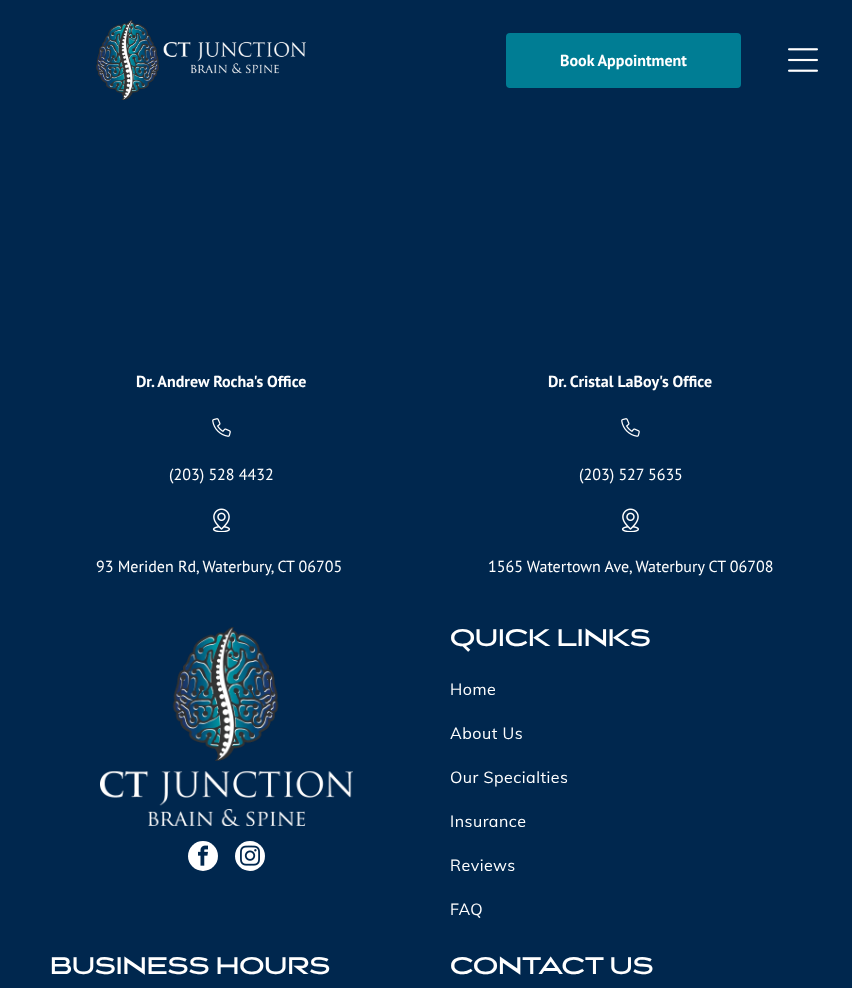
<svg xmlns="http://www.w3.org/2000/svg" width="852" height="988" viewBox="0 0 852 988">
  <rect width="100%" height="100%" fill="rgb(255,255,255)"/>
  <path d="M-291 147V-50C199 191 776-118 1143-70V147Z" fill="rgb(0,39,78)"/>
  <rect x="0" y="0" width="544" height="43" fill="rgb(0,39,78)"/>
  <image x="96" y="20" width="210" height="80" href="pic1.png"/>
  <rect x="506" y="33" width="235" height="55" rx="4" fill="rgb(0,125,148)"/>
  <text x="560" y="66" font-family="PT Sans" font-size="16" font-weight="bold" fill="rgb(255,255,255)">Book Appointment</text>
  <image x="788" y="48" width="30" height="24" href="pic2.png"/>
  <rect x="0" y="147" width="852" height="841" fill="rgb(0,39,78)"/>
  <text x="136" y="387" font-family="PT Sans" font-size="16" font-weight="bold" fill="rgb(255,255,255)">Dr. Andrew Rocha's Office</text>
  <image x="212" y="418" width="19" height="19" href="pic3.png"/>
  <text x="169" y="480" font-family="PT Sans" font-size="16" fill="rgb(255,255,255)">(203) 528 4432</text>
  <image x="212" y="508" width="18" height="24" href="pic4.png"/>
  <text x="96" y="572" font-family="PT Sans" font-size="16" fill="rgb(255,255,255)">93 Meriden Rd, Waterbury, CT 06705</text>
  <text x="548" y="387" font-family="PT Sans" font-size="16" font-weight="bold" fill="rgb(255,255,255)">Dr. Cristal LaBoy's Office</text>
  <image x="621" y="418" width="19" height="19" href="pic5.png"/>
  <text x="579" y="480" font-family="PT Sans" font-size="16" fill="rgb(255,255,255)">(203) 527 5635</text>
  <image x="621" y="508" width="18" height="24" href="pic6.png"/>
  <text x="488" y="572" font-family="PT Sans" font-size="16" fill="rgb(255,255,255)">1565 Watertown Ave, Waterbury CT 06708</text>
  <image x="100" y="627" width="253" height="199" href="pic7.png"/>
  <circle cx="203" cy="856" r="15" fill="rgb(255,255,255)"/>
  <image x="198" y="845" width="10" height="21" href="pic8.png"/>
  <circle cx="250" cy="856" r="15" fill="rgb(255,255,255)"/>
  <image x="240" y="845" width="20" height="21" href="pic9.png"/>
  <text x="450" y="646" font-family="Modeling" font-size="24" fill="rgb(255,255,255)">QUICK LINKS</text>
  <g font-family="Muli" font-size="16" letter-spacing="0.5" fill="rgb(255,255,255)">
    <text x="450" y="695">Home</text>
    <text x="450" y="739">About Us</text>
    <text x="450" y="783">Our Specialties</text>
    <text x="450" y="827">Insurance</text>
    <text x="450" y="871">Reviews</text>
    <text x="450" y="915">FAQ</text>
  </g>
  <g font-family="Modeling" font-size="24" fill="rgb(255,255,255)">
    <text x="50" y="974">BUSINESS HOURS</text>
    <text x="450" y="974">CONTACT US</text>
  </g>
</svg>
